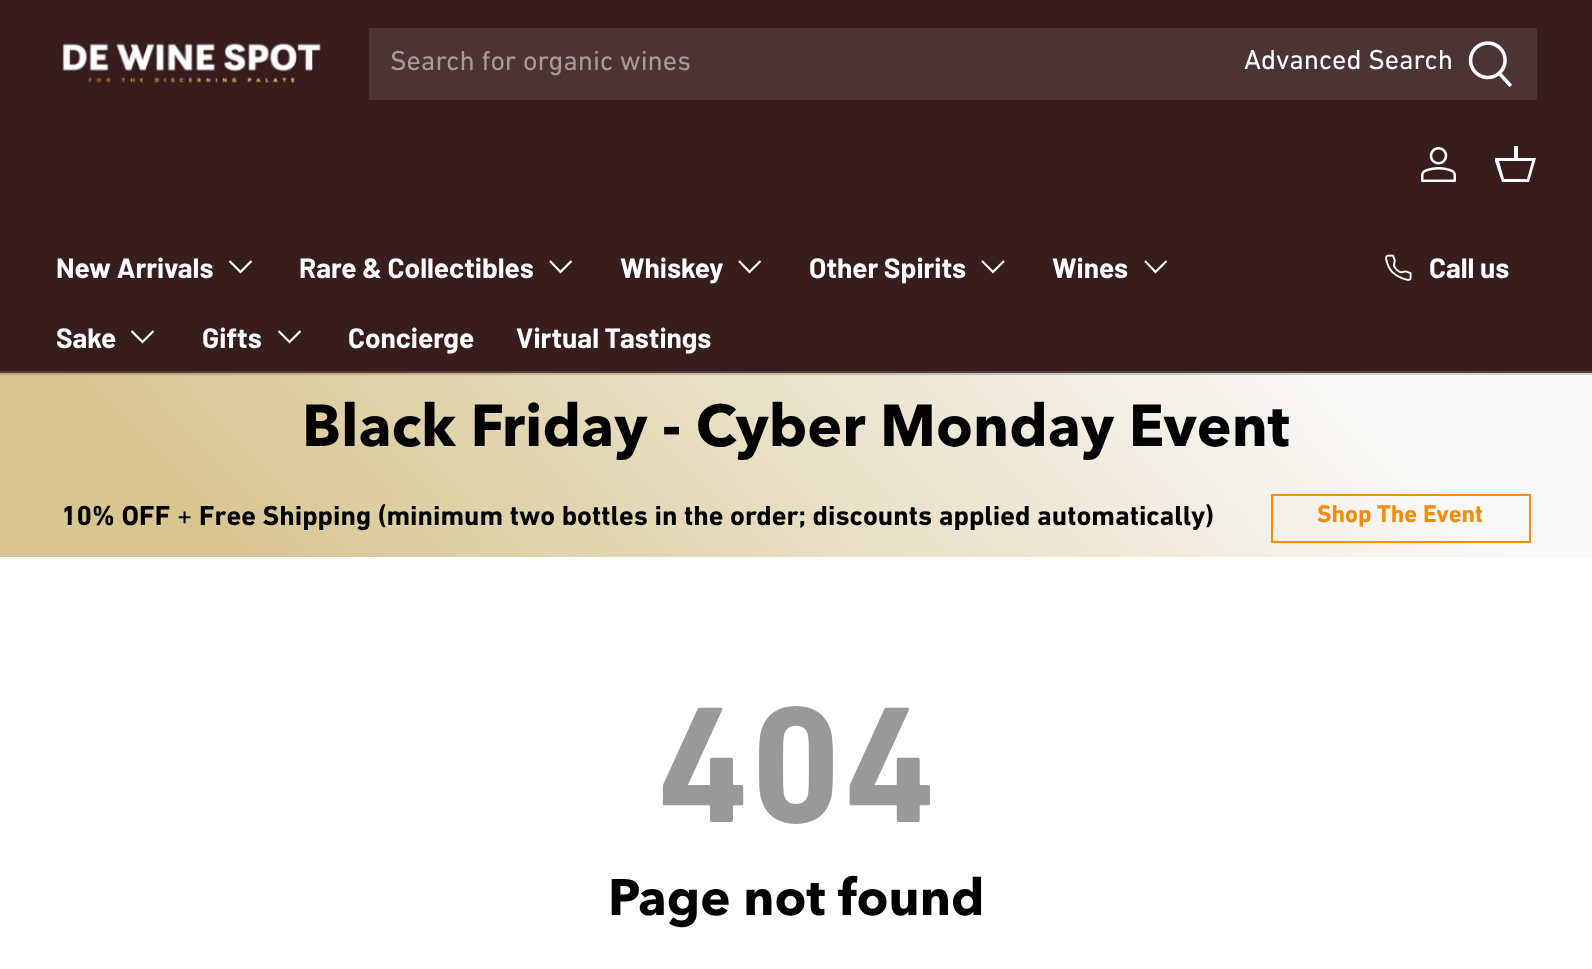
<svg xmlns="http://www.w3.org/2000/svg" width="1592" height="969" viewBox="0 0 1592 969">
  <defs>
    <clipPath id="clip1"><rect x="1495" y="144" width="42" height="42"/></clipPath>
    <linearGradient id="g1" gradientUnits="userSpaceOnUse" x1="339" y1="725" x2="1254" y2="-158"><stop offset="0.13" stop-color="rgb(184,168,123)"/><stop offset="0.86" stop-color="rgb(212,212,212)"/></linearGradient>
    <linearGradient id="g2" gradientUnits="userSpaceOnUse" x1="339" y1="907" x2="1254" y2="24"><stop offset="0.13" stop-color="rgb(216,198,145)"/><stop offset="0.86" stop-color="rgb(249,249,249)"/></linearGradient>
  </defs>
  <rect width="100%" height="100%" fill="rgb(255,255,255)"/>
  <rect x="0" y="0" width="1592" height="371" fill="rgb(56,29,29)"/>
  <rect x="0" y="371" width="1592" height="2" fill="rgb(86,63,63)"/>
  <image x="61" y="40" width="261" height="49" href="pic1.png"/>
  <rect x="369" y="28" width="1168" height="72" fill="rgb(76,52,52)"/>
  <text x="390" y="70" font-family="'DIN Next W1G'" font-size="28" fill="rgb(166,154,154)">Search for organic wines</text>
  <text x="1244" y="69" font-family="'DIN Next W1G'" font-size="28" fill="rgb(255,255,255)">Advanced Search</text>
  <image x="1468" y="41" width="45" height="46" href="pic2.png"/>
  <image x="1421" y="147" width="35" height="35" href="pic3.png"/>
  <g clip-path="url(#clip1)">
    <path d="M1514 158V146H1518V158H1536L1529 182H1502L1494 158ZM1499 161L1504 179H1527L1532 161Z" fill="rgb(255,255,255)"/>
  </g>
  <text x="56" y="278" font-family="Barlow" font-size="28" font-weight="bold" fill="rgb(255,255,255)">New Arrivals</text>
  <path d="M251.5 261L240.5 272L229.5 261" fill="none" stroke="rgb(255,255,255)" stroke-width="2.2"/>
  <text x="299" y="278" font-family="Barlow" font-size="28" font-weight="bold" fill="rgb(255,255,255)">Rare &amp; Collectibles</text>
  <path d="M571.5 261L560.5 272L550 261" fill="none" stroke="rgb(255,255,255)" stroke-width="2.2"/>
  <text x="620" y="278" font-family="Barlow" font-size="28" font-weight="bold" fill="rgb(255,255,255)">Whiskey</text>
  <path d="M760.5 261L749.5 272L739 261" fill="none" stroke="rgb(255,255,255)" stroke-width="2.2"/>
  <text x="809" y="278" font-family="Barlow" font-size="28" font-weight="bold" fill="rgb(255,255,255)">Other Spirits</text>
  <path d="M1004 261L993 272L982 261" fill="none" stroke="rgb(255,255,255)" stroke-width="2.2"/>
  <text x="1052" y="278" font-family="Barlow" font-size="28" font-weight="bold" fill="rgb(255,255,255)">Wines</text>
  <path d="M1166.5 261L1155.5 272L1145 261" fill="none" stroke="rgb(255,255,255)" stroke-width="2.2"/>
  <text x="56" y="348" font-family="Barlow" font-size="28" font-weight="bold" fill="rgb(255,255,255)">Sake</text>
  <path d="M153.5 331L142.5 342L131.5 331" fill="none" stroke="rgb(255,255,255)" stroke-width="2.2"/>
  <text x="202" y="348" font-family="Barlow" font-size="28" font-weight="bold" fill="rgb(255,255,255)">Gifts</text>
  <path d="M300.5 331L289.5 342L278.5 331" fill="none" stroke="rgb(255,255,255)" stroke-width="2.2"/>
  <g font-family="Barlow" font-size="28" font-weight="bold" fill="rgb(255,255,255)">
    <text x="348" y="348">Concierge</text>
    <text x="516" y="348">Virtual Tastings</text>
  </g>
  <image x="1385" y="254" width="27" height="27" href="pic4.png"/>
  <text x="1429" y="278" font-family="Barlow" font-size="28" font-weight="bold" fill="rgb(255,255,255)">Call us</text>
  <rect x="0" y="373" width="1592" height="2" fill="url(#g1)"/>
  <rect x="0" y="375" width="1592" height="182" fill="url(#g2)"/>
  <text x="302" y="446" font-family="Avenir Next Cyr" font-size="58.6" font-weight="bold" fill="rgb(0,0,0)">Black Friday - Cyber Monday Event</text>
  <text x="61" y="525" font-family="'DIN Next W1G'" font-size="28" font-weight="bold" fill="rgb(0,0,0)">10% OFF</text>
  <text x="177" y="525" font-family="'DIN Next W1G'" font-size="28" fill="rgb(0,0,0)">+</text>
  <text x="199" y="525" font-family="'DIN Next W1G'" font-size="28" font-weight="bold" fill="rgb(0,0,0)">Free Shipping (minimum two bottles in the order; discounts applied automatically)</text>
  <rect x="1272" y="495" width="258" height="47" fill="none" stroke="rgb(244,140,6)" stroke-width="2"/>
  <text x="1317" y="522" font-family="'DIN Next W1G'" font-size="24.5" font-weight="bold" fill="rgb(244,140,6)">Shop The Event</text>
  <text x="656" y="822" font-family="'DIN Next W1G'" font-size="168" font-weight="bold" fill="rgb(153,153,153)">404</text>
  <text x="608" y="915" font-family="Avenir Next Cyr" font-size="50.75" font-weight="bold" fill="rgb(0,0,0)">Page not found</text>
</svg>
